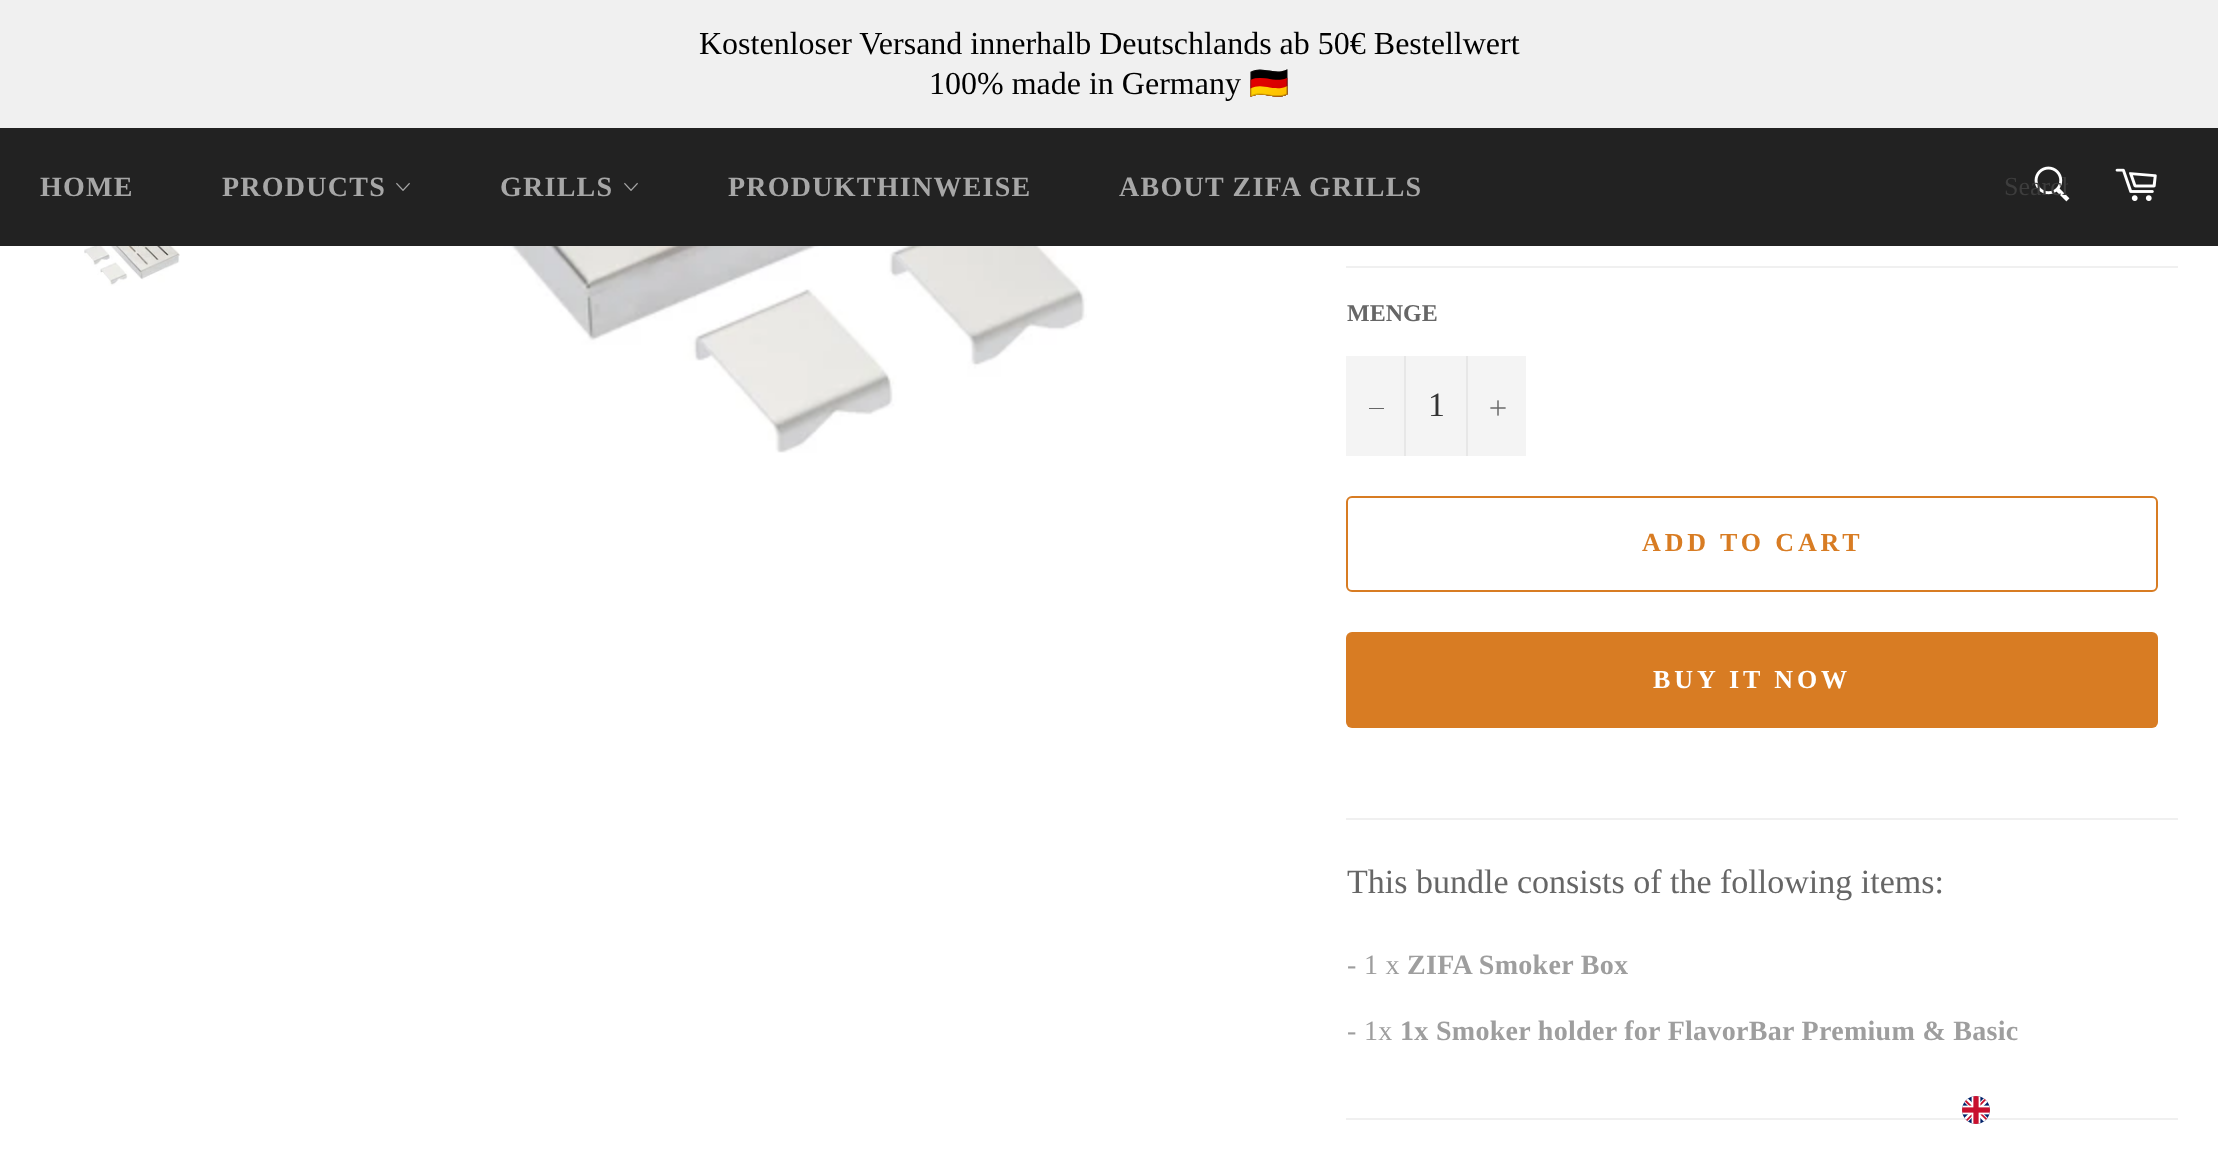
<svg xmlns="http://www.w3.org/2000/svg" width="2218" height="1160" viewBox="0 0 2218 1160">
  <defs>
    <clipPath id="clip1"><rect x="2004" y="172" width="64" height="32"/></clipPath>
  </defs>
  <rect width="100%" height="100%" fill="rgb(255,255,255)"/>
  <rect x="0" y="0" width="2218" height="128" fill="rgb(240,240,240)"/>
  <g font-family="Liberation Serif" font-size="32" fill="rgb(0,0,0)">
    <text x="699" y="54">Kostenloser Versand innerhalb Deutschlands ab 50€ Bestellwert</text>
    <text x="929" y="94">100% made in Germany</text>
  </g>
  <text x="1249" y="94" font-family="Noto Color Emoji" font-size="32" fill="rgb(0,0,0)">🇩🇪</text>
  <rect x="0" y="128" width="2218" height="118" fill="rgb(34,34,34)"/>
  <g font-family="Liberation Serif" font-size="28" font-weight="bold" letter-spacing="1.25" fill="rgb(167,167,167)">
    <text x="40" y="196">HOME</text>
    <text x="222" y="196">PRODUCTS</text>
  </g>
  <image x="396" y="182" width="14" height="9" href="pic1.png"/>
  <text x="500" y="196" font-family="Liberation Serif" font-size="28" font-weight="bold" letter-spacing="1.25" fill="rgb(167,167,167)">GRILLS</text>
  <image x="624" y="182" width="14" height="9" href="pic1.png"/>
  <g font-family="Liberation Serif" font-size="28" font-weight="bold" letter-spacing="1.25" fill="rgb(167,167,167)">
    <text x="728" y="196">PRODUKTHINWEISE</text>
    <text x="1119" y="196">ABOUT ZIFA GRILLS</text>
  </g>
  <image x="2034" y="166" width="36" height="36" href="pic2.png"/>
  <g clip-path="url(#clip1)">
    <text x="2004" y="195" font-family="Liberation Serif" font-size="26" fill="rgb(61,61,61)">Search</text>
  </g>
  <image x="2115" y="168" width="42" height="33" href="pic3.png"/>
  <image x="84" y="246" width="96" height="40" href="pic4.png"/>
  <image x="425" y="246" width="662" height="207" href="pic5.png"/>
  <rect x="1346" y="266" width="832" height="2" fill="rgb(240,240,240)"/>
  <text x="1347" y="321" font-family="Liberation Serif" font-size="24" font-weight="bold" fill="rgb(102,102,102)">MENGE</text>
  <rect x="1346" y="356" width="180" height="100" fill="rgb(244,244,244)"/>
  <rect x="1404" y="356" width="2" height="100" fill="rgb(231,231,231)"/>
  <rect x="1369" y="408" width="15" height="1" fill="rgb(102,102,102)"/>
  <text x="1428" y="416" font-family="Liberation Serif" font-size="34" fill="rgb(51,51,51)">1</text>
  <rect x="1466" y="356" width="2" height="100" fill="rgb(231,231,231)"/>
  <image x="1490" y="400" width="16" height="16" href="pic6.png"/>
  <rect x="1347" y="497" width="810" height="94" rx="5" fill="none" stroke="rgb(216,124,35)" stroke-width="2"/>
  <text x="1642" y="551" font-family="Liberation Serif" font-size="26" font-weight="bold" letter-spacing="3.9" fill="rgb(216,124,35)">ADD TO CART</text>
  <rect x="1346" y="632" width="812" height="96" rx="6" fill="rgb(216,124,35)"/>
  <text x="1653" y="688" font-family="Liberation Serif" font-size="26" font-weight="bold" letter-spacing="3.9" fill="rgb(255,255,255)">BUY IT NOW</text>
  <rect x="1346" y="818" width="832" height="2" fill="rgb(240,240,240)"/>
  <text x="1347" y="893" font-family="Liberation Serif" font-size="34" fill="rgb(102,102,102)">This bundle consists of the following items:</text>
  <text x="1347" y="974" font-family="Liberation Serif" font-size="28" letter-spacing="0.3" fill="rgb(158,158,158)">- 1 x</text>
  <text x="1407" y="974" font-family="Liberation Serif" font-size="28" font-weight="bold" letter-spacing="0.3" fill="rgb(158,158,158)">ZIFA Smoker Box</text>
  <text x="1347" y="1040" font-family="Liberation Serif" font-size="28" letter-spacing="0.3" fill="rgb(158,158,158)">- 1x</text>
  <text x="1400" y="1040" font-family="Liberation Serif" font-size="28" font-weight="bold" letter-spacing="0.3" fill="rgb(158,158,158)">1x Smoker holder for FlavorBar Premium &amp; Basic</text>
  <rect x="1346" y="1118" width="832" height="2" fill="rgb(240,240,240)"/>
  <image x="1962" y="1096" width="28" height="28" href="pic7.png"/>
</svg>
